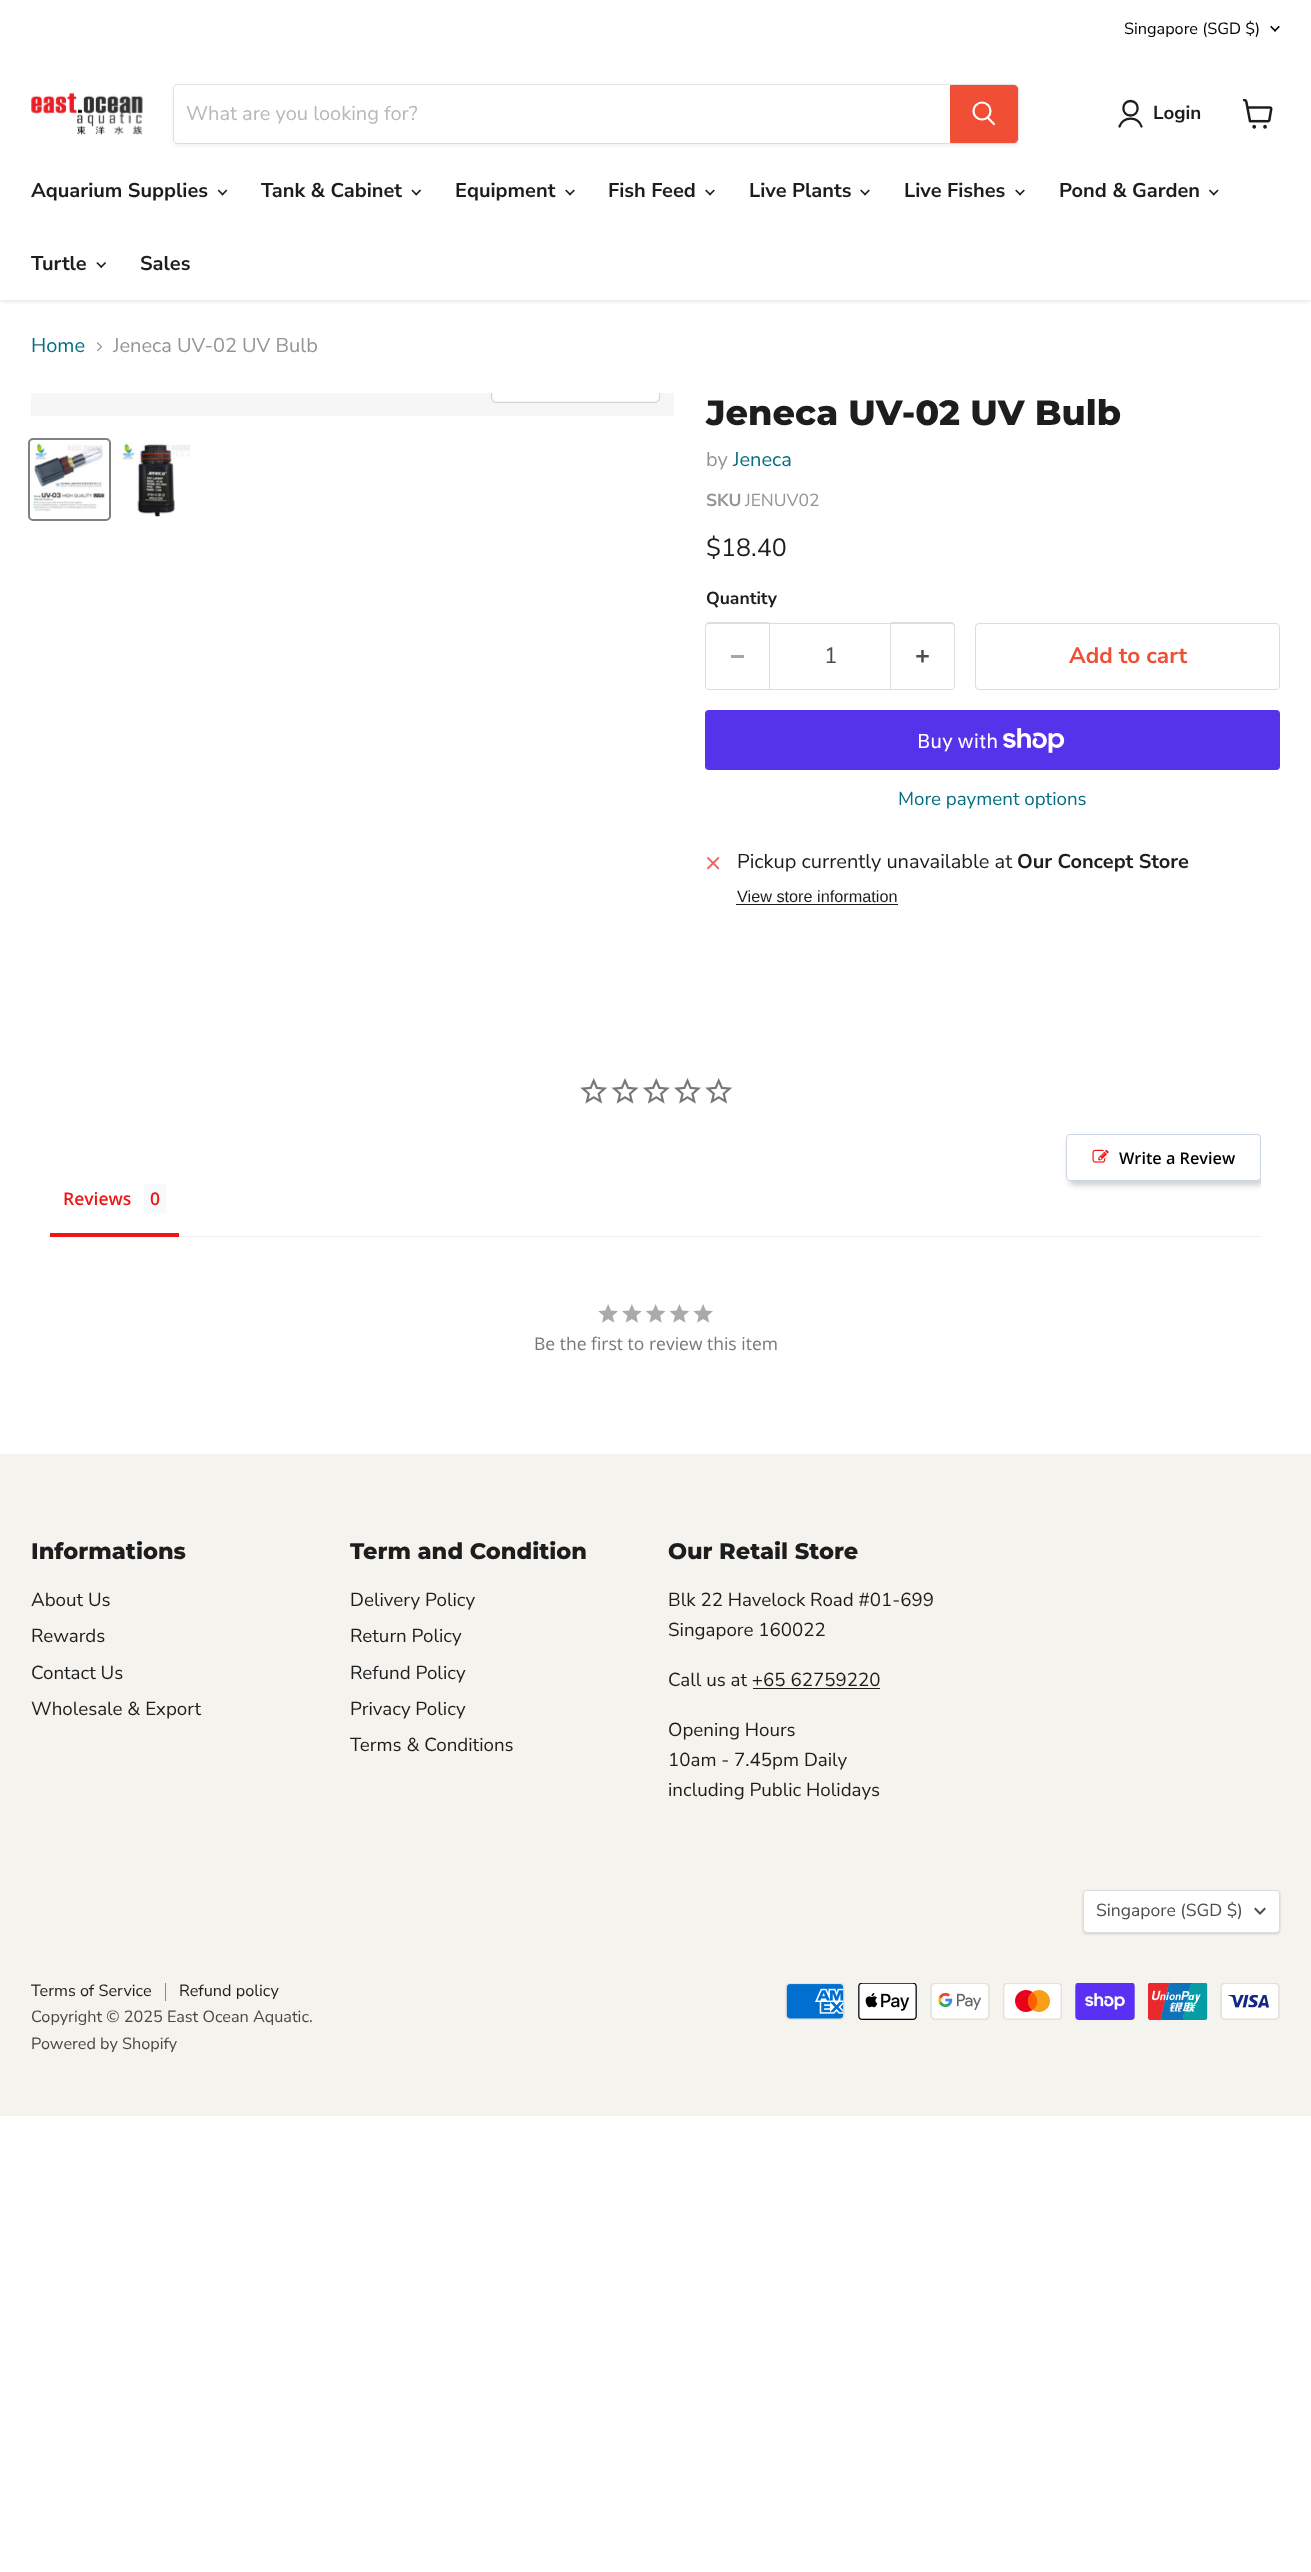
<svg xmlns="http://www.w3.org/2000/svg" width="1311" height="2572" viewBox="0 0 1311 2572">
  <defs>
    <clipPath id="clip1"><rect x="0" y="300" width="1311" height="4"/></clipPath>
    <clipPath id="clip2"><rect x="31" y="393" width="643" height="23"/></clipPath>
    <clipPath id="clip3"><rect x="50" y="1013" width="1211" height="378"/></clipPath>
    <clipPath id="clip4"><path d="M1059 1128H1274V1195H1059ZM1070 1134H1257C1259 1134 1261 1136 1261 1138V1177C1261 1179 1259 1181 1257 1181H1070C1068 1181 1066 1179 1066 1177V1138C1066 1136 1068 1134 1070 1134Z" clip-rule="evenodd"/></clipPath>
  </defs>
  <rect width="100%" height="100%" fill="rgb(255,255,255)"/>
  <g clip-path="url(#clip1)">
    <rect x="0" y="61" width="1311" height="240" fill="rgba(128,128,128,0.25)" filter="blur(2.5px)"/>
  </g>
  <rect x="0" y="58" width="1311" height="2" fill="rgb(255,255,255)"/>
  <text x="1124" y="34" font-family="Nunito Sans" font-size="16.25" fill="rgb(0,0,0)">Singapore (SGD $)</text>
  <image x="1270" y="25" width="10" height="7" href="pic1.png"/>
  <image x="31" y="92" width="112" height="43" href="pic2.png"/>
  <rect x="173" y="86" width="846" height="60" rx="5" fill="rgba(128,128,128,0.11)" filter="blur(2px)"/>
  <rect x="173.5" y="84.5" width="845" height="59" rx="4.5" fill="none" stroke="rgba(128,128,128,0.2)"/>
  <path d="M178 85H950V143H178C176 143 174 141 174 139V89C174 87 176 85 178 85Z" fill="rgb(255,255,255)"/>
  <text x="186" y="120" font-family="Nunito Sans" font-size="20" fill="rgb(184,184,184)">What are you looking for?</text>
  <path d="M950.5 85.5H1014C1016 85.5 1017.5 87 1017.5 89V139C1017.5 141 1016 142.5 1014 142.5H950.5Z" fill="rgb(240,79,54)" stroke="rgb(240,79,54)"/>
  <path d="M994 124L988 118" fill="none" stroke="rgb(255,255,255)" stroke-width="2.2" stroke-linecap="round"/>
  <circle cx="982" cy="111" r="8.5" fill="none" stroke="rgb(255,255,255)" stroke-width="2.2"/>
  <path d="M1130.5 115.5C1140 115.5 1140 101 1130.5 101C1121 101 1121 115.5 1130.5 115.5ZM1141.5 126.5C1138 116 1123.5 116 1119.5 126.5" fill="none" stroke="rgb(29,29,29)" stroke-width="2.3" stroke-linecap="round" stroke-linejoin="round"/>
  <text x="1153" y="119" font-family="Nunito Sans" font-size="18.75" font-weight="bold" fill="rgb(29,29,29)">Login</text>
  <image x="1243" y="99" width="30" height="30" href="pic3.png"/>
  <text x="31" y="197" font-family="Nunito Sans" font-size="20" font-weight="bold" fill="rgb(29,29,29)">Aquarium Supplies</text>
  <image x="218" y="189" width="10" height="7" href="pic4.png"/>
  <text x="261" y="197" font-family="Nunito Sans" font-size="20" font-weight="bold" fill="rgb(29,29,29)">Tank &amp; Cabinet</text>
  <image x="411" y="189" width="10" height="7" href="pic5.png"/>
  <text x="455" y="197" font-family="Nunito Sans" font-size="20" font-weight="bold" fill="rgb(29,29,29)">Equipment</text>
  <image x="565" y="189" width="10" height="7" href="pic6.png"/>
  <text x="608" y="197" font-family="Nunito Sans" font-size="20" font-weight="bold" fill="rgb(29,29,29)">Fish Feed</text>
  <image x="705" y="189" width="10" height="7" href="pic6.png"/>
  <text x="749" y="197" font-family="Nunito Sans" font-size="20" font-weight="bold" fill="rgb(29,29,29)">Live Plants</text>
  <image x="860" y="189" width="10" height="7" href="pic6.png"/>
  <text x="904" y="197" font-family="Nunito Sans" font-size="20" font-weight="bold" fill="rgb(29,29,29)">Live Fishes</text>
  <image x="1015" y="189" width="10" height="7" href="pic6.png"/>
  <text x="1059" y="197" font-family="Nunito Sans" font-size="20" font-weight="bold" fill="rgb(29,29,29)">Pond &amp; Garden</text>
  <image x="1209" y="189" width="10" height="7" href="pic7.png"/>
  <text x="31" y="270" font-family="Nunito Sans" font-size="20" font-weight="bold" fill="rgb(29,29,29)">Turtle</text>
  <image x="96" y="262" width="10" height="6" href="pic8.png"/>
  <text x="140" y="270" font-family="Nunito Sans" font-size="20" font-weight="bold" fill="rgb(29,29,29)">Sales</text>
  <text x="31" y="352" font-family="Nunito Sans" font-size="20" fill="rgb(4,110,130)">Home</text>
  <image x="96" y="342" width="6" height="10" href="pic9.png"/>
  <text x="113" y="352" font-family="Nunito Sans" font-size="20" fill="rgb(148,148,148)">Jeneca UV-02 UV Bulb</text>
  <rect x="31" y="393" width="643" height="23" fill="rgb(246,246,246)"/>
  <g clip-path="url(#clip2)">
    <rect x="491.5" y="365.5" width="168" height="37" rx="4.5" fill="none" stroke="rgb(209,209,209)"/>
  </g>
  <path d="M493 393H659V397C659 399 657 401 655 401H497C495 401 493 399 493 397Z" fill="rgb(254,254,254)"/>
  <rect x="29" y="439" width="81" height="81" rx="4" fill="none" stroke="rgb(129,129,129)" stroke-width="2"/>
  <image x="31" y="441" width="74" height="71" href="pic10.png"/>
  <image x="119" y="441" width="72" height="76" href="pic11.png"/>
  <text x="706" y="425" font-family="Montserrat" font-size="35" font-weight="800" fill="rgb(29,29,29)">Jeneca UV-02 UV Bulb</text>
  <text x="706" y="466" font-family="Nunito Sans" font-size="20" fill="rgb(148,148,148)">by</text>
  <text x="733" y="466" font-family="Nunito Sans" font-size="20" fill="rgb(4,110,130)">Jeneca</text>
  <text x="706" y="506" font-family="Nunito Sans" font-size="17.5" font-weight="bold" fill="rgb(148,148,148)">SKU</text>
  <text x="745" y="506" font-family="Nunito Sans" font-size="17.5" fill="rgb(148,148,148)">JENUV02</text>
  <text x="706" y="556" font-family="Nunito Sans" font-size="25" fill="rgb(29,29,29)">$18.40</text>
  <text x="706" y="604" font-family="Nunito Sans" font-size="17.5" font-weight="bold" fill="rgb(29,29,29)">Quantity</text>
  <path d="M709 622H769V690H709C707 690 705 688 705 686V626C705 624 707 622 709 622ZM709 624H769V689H709C707 689 706 688 706 686V626C706 625 707 624 709 624Z" fill="rgb(221,221,221)" fill-rule="evenodd"/>
  <rect x="731" y="655" width="13" height="3" fill="rgb(166,166,166)"/>
  <rect x="769.5" y="623.5" width="121" height="66" fill="none" stroke="rgb(221,221,221)"/>
  <text x="824" y="663" font-family="Nunito Sans" font-size="22.5" fill="rgb(77,77,77)">1</text>
  <path d="M891 622H951C953 622 955 624 955 626V686C955 688 953 690 951 690H891ZM891 624H951C953 624 954 625 954 626V686C954 688 953 689 951 689H891Z" fill="rgb(221,221,221)" fill-rule="evenodd"/>
  <image x="916" y="650" width="13" height="13" href="pic12.png"/>
  <rect x="975.5" y="623.5" width="304" height="66" rx="3.5" fill="none" stroke="rgb(221,221,221)"/>
  <text x="1069" y="663" font-family="Nunito Sans" font-size="22.5" font-weight="bold" fill="rgb(240,79,54)">Add to cart</text>
  <rect x="705" y="710" width="575" height="60" rx="4" fill="rgb(84,51,235)"/>
  <text x="917" y="748" font-family="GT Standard" font-size="20" fill="rgb(255,255,255)">Buy with</text>
  <image x="1003" y="728" width="62" height="25" href="pic13.png"/>
  <text x="898" y="805" font-family="Nunito Sans" font-size="18.75" fill="rgb(4,110,130)">More payment options</text>
  <image x="706" y="856" width="14" height="14" href="pic14.png"/>
  <text x="737" y="868" font-family="Nunito Sans" font-size="20" fill="rgb(29,29,29)">Pickup currently unavailable at</text>
  <text x="1017" y="868" font-family="Nunito Sans" font-size="20" font-weight="bold" fill="rgb(29,29,29)">Our Concept Store</text>
  <text x="737" y="902" font-family="Liberation Sans" font-size="16.25" fill="rgb(29,29,29)">View store information</text>
  <rect x="736" y="904" width="162" height="1" fill="rgb(29,29,29)"/>
  <image x="580" y="1078" width="28" height="26" href="pic15.png"/>
  <image x="611" y="1078" width="28" height="26" href="pic16.png"/>
  <image x="642" y="1078" width="28" height="26" href="pic17.png"/>
  <image x="674" y="1078" width="27" height="26" href="pic18.png"/>
  <image x="705" y="1078" width="28" height="26" href="pic15.png"/>
  <g clip-path="url(#clip3)">
    <g clip-path="url(#clip4)">
      <rect x="1069" y="1138" width="195" height="47" rx="4" fill="rgba(136,136,136,0.42)" filter="blur(3px)"/>
    </g>
  </g>
  <rect x="1066.5" y="1134.5" width="194" height="46" rx="3.5" fill="none" stroke="rgb(204,214,224)"/>
  <image x="1092" y="1149" width="17" height="14" href="pic19.png"/>
  <text x="1119" y="1164" font-family="Open Sans" font-size="16.25" font-weight="600" fill="rgb(0,0,0)">Write a Review</text>
  <rect x="179" y="1236" width="1082" height="1" fill="rgb(238,238,238)"/>
  <rect x="50" y="1233" width="129" height="4" fill="rgb(237,21,21)"/>
  <text x="63" y="1205" font-family="Open Sans" font-size="17.5" font-weight="600" fill="rgb(237,21,21)">Reviews</text>
  <rect x="144" y="1184" width="22" height="29" fill="rgb(248,249,250)"/>
  <text x="150" y="1205" font-family="Open Sans" font-size="17.5" font-weight="600" fill="rgb(237,21,21)">0</text>
  <image x="598" y="1304" width="115" height="19" href="pic20.png"/>
  <text x="534" y="1350" font-family="Open Sans" font-size="17.5" fill="rgb(119,119,119)">Be the first to review this item</text>
  <rect x="0" y="1454" width="1311" height="662" fill="rgb(245,243,237)"/>
  <text x="31" y="1559" font-family="Montserrat" font-size="22.5" font-weight="800" fill="rgb(29,29,29)">Informations</text>
  <g font-family="Nunito Sans" font-size="18.75" fill="rgb(29,29,29)">
    <text>
      <tspan x="31" y="1606">About Us</tspan>
      <tspan x="31" y="1642">Rewards</tspan>
      <tspan x="31" y="1679">Contact Us</tspan>
      <tspan x="31" y="1715">Wholesale &amp; Export</tspan>
    </text>
  </g>
  <text x="350" y="1559" font-family="Montserrat" font-size="22.5" font-weight="800" fill="rgb(29,29,29)">Term and Condition</text>
  <g font-family="Nunito Sans" font-size="18.75" fill="rgb(29,29,29)">
    <text>
      <tspan x="350" y="1606">Delivery Policy</tspan>
      <tspan x="350" y="1642">Return Policy</tspan>
      <tspan x="350" y="1679">Refund Policy</tspan>
      <tspan x="350" y="1715">Privacy Policy</tspan>
      <tspan x="350" y="1751">Terms &amp; Conditions</tspan>
    </text>
  </g>
  <text x="668" y="1559" font-family="Montserrat" font-size="22.5" font-weight="800" fill="rgb(29,29,29)">Our Retail Store</text>
  <g font-family="Nunito Sans" font-size="18.75" fill="rgb(29,29,29)">
    <text>
      <tspan x="668" y="1606">Blk 22 Havelock Road #01-699</tspan>
      <tspan x="668" y="1636">Singapore 160022</tspan>
    </text>
    <text x="668" y="1686">Call us at +65 62759220</text>
  </g>
  <rect x="753" y="1688" width="127" height="1" fill="rgb(29,29,29)"/>
  <g font-family="Nunito Sans" font-size="18.75" fill="rgb(29,29,29)">
    <text>
      <tspan x="668" y="1736">Opening Hours</tspan>
      <tspan x="668" y="1766">10am - 7.45pm Daily</tspan>
      <tspan x="668" y="1796">including Public Holidays</tspan>
    </text>
  </g>
  <rect x="1083" y="1891" width="197" height="43" rx="4" fill="rgba(0,0,0,0.15)" filter="blur(1px)"/>
  <rect x="1083.5" y="1890.5" width="196" height="42" rx="3.5" fill="rgb(255,255,255)" stroke="rgb(221,221,221)"/>
  <text x="1096" y="1916" font-family="Nunito Sans" font-size="17.5" fill="rgb(77,77,77)">Singapore (SGD $)</text>
  <path d="M1260 1913.5L1264.5 1909M1260 1913.5L1255.5 1909" fill="none" stroke="rgb(77,77,77)" stroke-width="2" stroke-linecap="square"/>
  <rect x="165" y="1983" width="1" height="18" fill="rgb(137,136,133)"/>
  <g font-family="Nunito Sans" font-size="16.25" fill="rgb(29,29,29)">
    <text x="31" y="1996">Terms of Service</text>
    <text x="179" y="1996">Refund policy</text>
  </g>
  <g font-family="Nunito Sans" font-size="16.25" fill="rgb(72,72,71)">
    <text>
      <tspan x="31" y="2022">Copyright © 2025 East Ocean Aquatic.</tspan>
      <tspan x="31" y="2049">Powered by Shopify</tspan>
    </text>
  </g>
  <image x="785" y="1983" width="60" height="37" href="pic21.png"/>
  <image x="858" y="1983" width="59" height="37" href="pic22.png"/>
  <image x="930" y="1983" width="60" height="37" href="pic23.png"/>
  <image x="1003" y="1983" width="59" height="37" href="pic24.png"/>
  <image x="1075" y="1983" width="60" height="37" href="pic25.png"/>
  <image x="1148" y="1983" width="60" height="37" href="pic26.png"/>
  <image x="1220" y="1983" width="60" height="37" href="pic27.png"/>
</svg>
